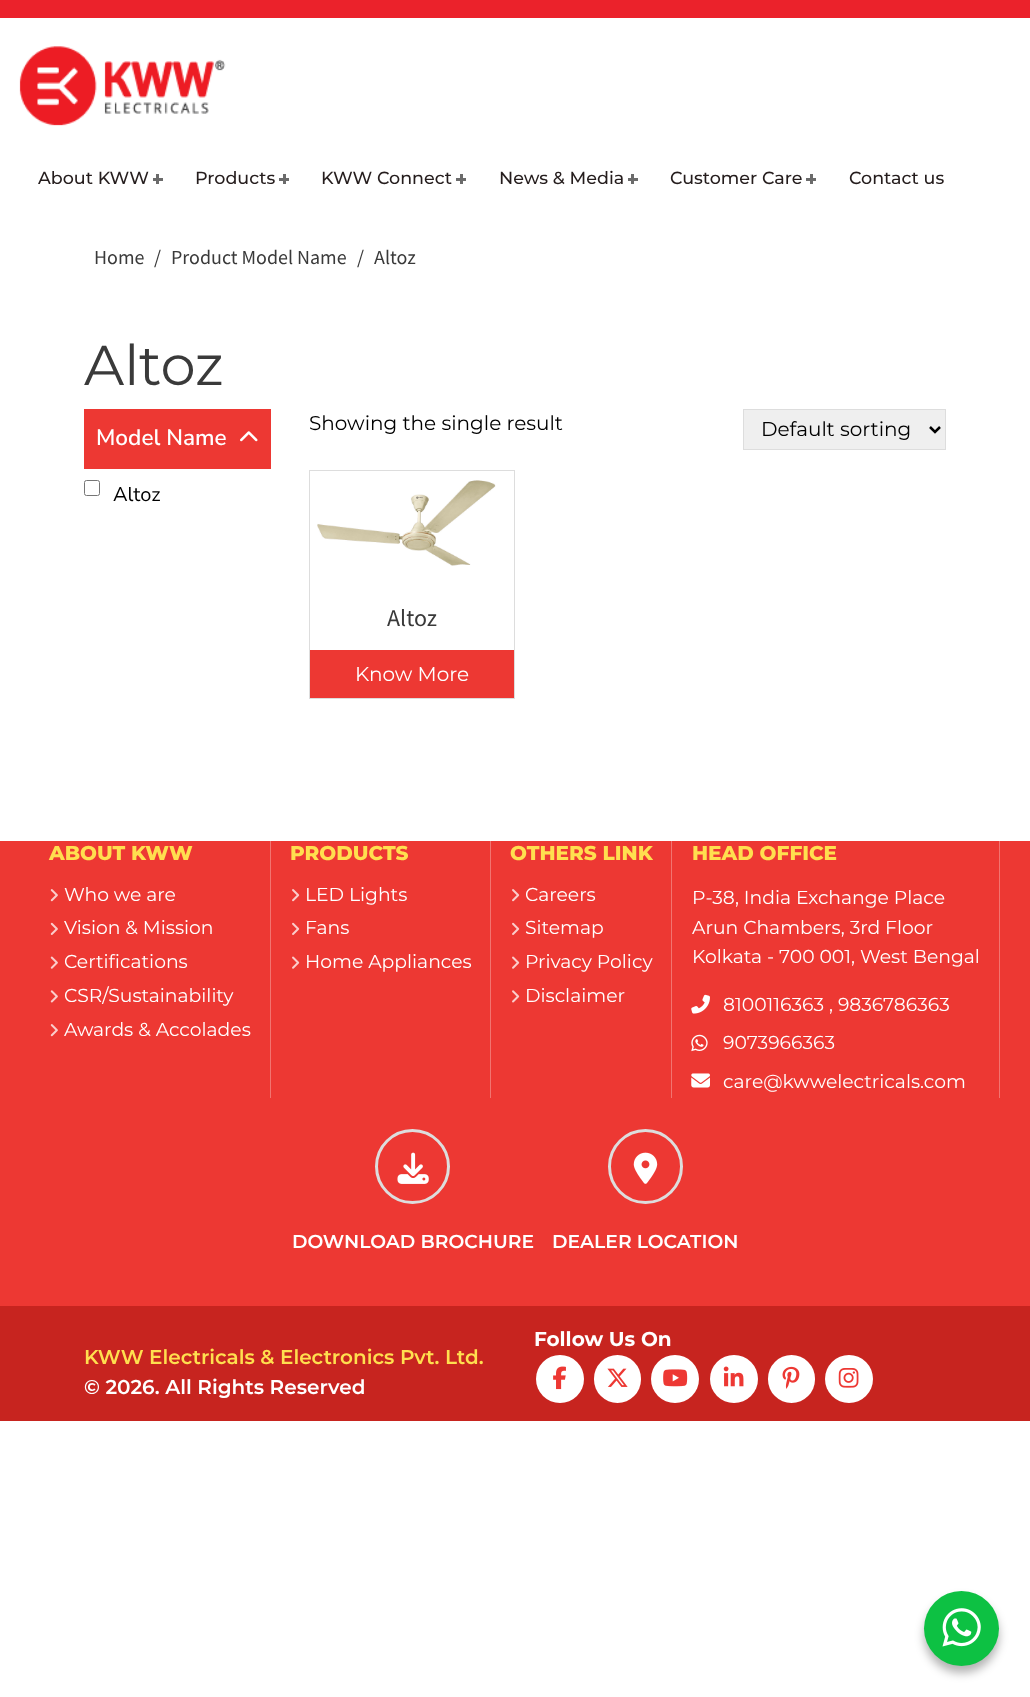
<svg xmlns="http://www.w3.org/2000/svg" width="1030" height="1697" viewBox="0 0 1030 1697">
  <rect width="100%" height="100%" fill="rgb(255,255,255)"/>
  <rect x="0" y="0" width="1030" height="18" fill="rgb(235,34,43)"/>
  <image x="19" y="46" width="207" height="80" href="pic1.png"/>
  <text x="38" y="184" font-family="Montserrat" font-size="17.5" font-weight="500" fill="rgb(37,29,29)">About KWW</text>
  <rect x="156" y="174" width="3" height="10" fill="rgb(107,107,107)"/>
  <rect x="153" y="178" width="10" height="3" fill="rgb(107,107,107)"/>
  <text x="195" y="184" font-family="Montserrat" font-size="17.5" font-weight="500" fill="rgb(37,29,29)">Products</text>
  <rect x="283" y="174" width="3" height="10" fill="rgb(107,107,107)"/>
  <rect x="279" y="178" width="10" height="3" fill="rgb(107,107,107)"/>
  <text x="321" y="184" font-family="Montserrat" font-size="17.5" font-weight="500" fill="rgb(37,29,29)">KWW Connect</text>
  <rect x="460" y="174" width="3" height="10" fill="rgb(107,107,107)"/>
  <rect x="456" y="178" width="10" height="3" fill="rgb(107,107,107)"/>
  <text x="499" y="184" font-family="Montserrat" font-size="17.5" font-weight="500" fill="rgb(37,29,29)">News &amp; Media</text>
  <rect x="631" y="174" width="3" height="10" fill="rgb(107,107,107)"/>
  <rect x="628" y="178" width="10" height="3" fill="rgb(107,107,107)"/>
  <text x="670" y="184" font-family="Montserrat" font-size="17.5" font-weight="500" fill="rgb(37,29,29)">Customer Care</text>
  <rect x="810" y="174" width="3" height="10" fill="rgb(107,107,107)"/>
  <rect x="806" y="178" width="10" height="3" fill="rgb(107,107,107)"/>
  <text x="849" y="184" font-family="Montserrat" font-size="17.5" font-weight="500" fill="rgb(37,29,29)">Contact us</text>
  <g font-family="Source Sans Pro" font-size="20" fill="rgb(58,58,58)">
    <text x="94" y="264">Home</text>
    <text x="154" y="264">/</text>
    <text x="171" y="264">Product Model Name</text>
    <text x="357" y="264">/</text>
    <text x="374" y="264">Altoz</text>
  </g>
  <text x="84" y="385" font-family="Montserrat" font-size="56" fill="rgb(58,58,58)">Altoz</text>
  <rect x="84" y="409" width="187" height="60" fill="rgb(237,56,51)"/>
  <text x="96" y="445" font-family="Nunito Sans" font-size="22.5" font-weight="600" fill="rgb(255,255,255)">Model Name</text>
  <image x="240" y="431" width="18" height="11" href="pic2.png"/>
  <rect x="84.5" y="480.5" width="15" height="15" rx="2" fill="none" stroke="rgb(118,118,118)"/>
  <text x="113" y="501" font-family="Nunito Sans" font-size="20" fill="rgb(0,0,0)">Altoz</text>
  <text x="309" y="430" font-family="Montserrat" font-size="20" fill="rgb(0,0,0)">Showing the single result</text>
  <rect x="743.5" y="409.5" width="202" height="40" fill="rgb(239,239,239)" stroke="rgb(221,221,221)"/>
  <path d="M930 427L935 432L940 427" fill="none" stroke="rgb(0,0,0)" stroke-width="2.5"/>
  <text x="761" y="436" font-family="Montserrat" font-size="20" fill="rgb(0,0,0)">Default sorting</text>
  <rect x="309.5" y="470.5" width="205" height="228" fill="none" stroke="rgb(221,221,221)"/>
  <image x="317" y="480" width="179" height="86" href="pic3.png"/>
  <text x="387" y="626" font-family="Source Sans Pro" font-size="24" fill="rgb(58,58,58)">Altoz</text>
  <rect x="310" y="650" width="204" height="48" fill="rgb(237,56,51)"/>
  <text x="355" y="681" font-family="Montserrat" font-size="20" fill="rgb(255,255,255)">Know More</text>
  <rect x="0" y="841" width="1030" height="465" fill="rgb(237,56,51)"/>
  <rect x="270" y="841" width="1" height="257" fill="rgb(242,116,112)"/>
  <text x="49" y="860" font-family="Montserrat" font-size="20" font-weight="800" fill="rgb(255,223,79)">ABOUT KWW</text>
  <image x="50" y="889" width="8" height="13" href="pic4.png"/>
  <text x="64" y="901" font-family="Montserrat" font-size="18.75" fill="rgb(255,255,255)">Who we are</text>
  <image x="50" y="922" width="8" height="13" href="pic5.png"/>
  <text x="64" y="934" font-family="Montserrat" font-size="18.75" fill="rgb(255,255,255)">Vision &amp; Mission</text>
  <image x="50" y="956" width="8" height="13" href="pic6.png"/>
  <text x="64" y="968" font-family="Montserrat" font-size="18.75" fill="rgb(255,255,255)">Certifications</text>
  <image x="50" y="990" width="8" height="13" href="pic7.png"/>
  <text x="64" y="1002" font-family="Montserrat" font-size="18.75" fill="rgb(255,255,255)">CSR/Sustainability</text>
  <image x="50" y="1024" width="8" height="13" href="pic4.png"/>
  <text x="64" y="1036" font-family="Montserrat" font-size="18.75" fill="rgb(255,255,255)">Awards &amp; Accolades</text>
  <rect x="490" y="841" width="1" height="257" fill="rgb(242,116,112)"/>
  <text x="290" y="860" font-family="Montserrat" font-size="20" font-weight="800" fill="rgb(255,223,79)">PRODUCTS</text>
  <image x="292" y="889" width="8" height="13" href="pic8.png"/>
  <text x="305" y="901" font-family="Montserrat" font-size="18.75" fill="rgb(255,255,255)">LED Lights</text>
  <image x="292" y="922" width="8" height="13" href="pic9.png"/>
  <text x="305" y="934" font-family="Montserrat" font-size="18.75" fill="rgb(255,255,255)">Fans</text>
  <image x="292" y="956" width="8" height="13" href="pic10.png"/>
  <text x="305" y="968" font-family="Montserrat" font-size="18.75" fill="rgb(255,255,255)">Home Appliances</text>
  <rect x="671" y="841" width="1" height="257" fill="rgb(242,116,112)"/>
  <text x="510" y="860" font-family="Montserrat" font-size="20" font-weight="800" fill="rgb(255,223,79)">OTHERS LINK</text>
  <image x="512" y="889" width="8" height="13" href="pic8.png"/>
  <text x="525" y="901" font-family="Montserrat" font-size="18.75" fill="rgb(255,255,255)">Careers</text>
  <image x="512" y="922" width="8" height="13" href="pic9.png"/>
  <text x="525" y="934" font-family="Montserrat" font-size="18.75" fill="rgb(255,255,255)">Sitemap</text>
  <image x="512" y="956" width="8" height="13" href="pic10.png"/>
  <text x="525" y="968" font-family="Montserrat" font-size="18.75" fill="rgb(255,255,255)">Privacy Policy</text>
  <image x="512" y="990" width="8" height="13" href="pic11.png"/>
  <text x="525" y="1002" font-family="Montserrat" font-size="18.75" fill="rgb(255,255,255)">Disclaimer</text>
  <rect x="999" y="841" width="1" height="257" fill="rgb(242,116,112)"/>
  <text x="692" y="860" font-family="Montserrat" font-size="20" font-weight="800" fill="rgb(255,223,79)">HEAD OFFICE</text>
  <g font-family="Montserrat" font-size="18.75" fill="rgb(255,255,255)">
    <text>
      <tspan x="692" y="904">P-38, India Exchange Place</tspan>
      <tspan x="692" y="934">Arun Chambers, 3rd Floor</tspan>
      <tspan x="692" y="963">Kolkata - 700 001, West Bengal</tspan>
    </text>
  </g>
  <image x="691" y="994" width="19" height="20" href="pic12.png"/>
  <g font-family="Montserrat" font-size="18.75" fill="rgb(255,255,255)">
    <text x="723" y="1011">8100116363</text>
    <text x="829" y="1011">, 9836786363</text>
  </g>
  <image x="691" y="1034" width="17" height="18" href="pic13.png"/>
  <text x="723" y="1049" font-family="Montserrat" font-size="18.75" fill="rgb(255,255,255)">9073966363</text>
  <image x="691" y="1073" width="19" height="15" href="pic14.png"/>
  <text x="723" y="1088" font-family="Montserrat" font-size="18.75" fill="rgb(255,255,255)">care@kwwelectricals.com</text>
  <circle cx="412.5" cy="1166.5" r="36" fill="none" stroke="rgb(221,221,221)" stroke-width="3"/>
  <image x="397" y="1152" width="32" height="32" href="pic15.png"/>
  <text x="292" y="1248" font-family="Montserrat" font-size="18.75" font-weight="600" fill="rgb(255,255,255)">DOWNLOAD BROCHURE</text>
  <circle cx="645.5" cy="1166.5" r="36" fill="none" stroke="rgb(221,221,221)" stroke-width="3"/>
  <image x="633" y="1152" width="25" height="32" href="pic16.png"/>
  <text x="552" y="1248" font-family="Montserrat" font-size="18.75" font-weight="600" fill="rgb(255,255,255)">DEALER LOCATION</text>
  <rect x="0" y="1306" width="1030" height="115" fill="rgb(199,36,31)"/>
  <text x="534" y="1346" font-family="Montserrat" font-size="20" font-weight="bold" fill="rgb(255,255,255)">Follow Us On</text>
  <circle cx="560" cy="1379" r="24" fill="rgb(255,255,255)"/>
  <image x="553" y="1366" width="13" height="24" href="pic17.png"/>
  <rect x="594" y="1355" width="47" height="48" rx="23.5" fill="rgb(255,255,255)"/>
  <image x="607" y="1368" width="21" height="19" href="pic18.png"/>
  <circle cx="675" cy="1379" r="24" fill="rgb(255,255,255)"/>
  <image x="663" y="1369" width="25" height="18" href="pic19.png"/>
  <circle cx="734" cy="1379" r="24" fill="rgb(255,255,255)"/>
  <image x="723" y="1366" width="21" height="21" href="pic20.png"/>
  <rect x="768" y="1355" width="47" height="48" rx="23.5" fill="rgb(255,255,255)"/>
  <image x="782" y="1366" width="18" height="23" href="pic21.png"/>
  <circle cx="849" cy="1379" r="24" fill="rgb(255,255,255)"/>
  <image x="838" y="1368" width="21" height="20" href="pic22.png"/>
  <text x="84" y="1364" font-family="Montserrat" font-size="20" font-weight="600" fill="rgb(255,223,79)">KWW Electricals &amp; Electronics Pvt. Ltd.</text>
  <text x="84" y="1394" font-family="Montserrat" font-size="20" font-weight="600" fill="rgb(255,255,255)">© 2026. All Rights Reserved</text>
  <rect x="924" y="1598" width="75" height="75" rx="37.5" fill="rgba(0,0,0,0.3)" filter="blur(5px)"/>
  <circle cx="961.5" cy="1628.5" r="37.5" fill="rgb(13,193,67)"/>
  <image x="942" y="1608" width="39" height="39" href="pic23.png"/>
</svg>
